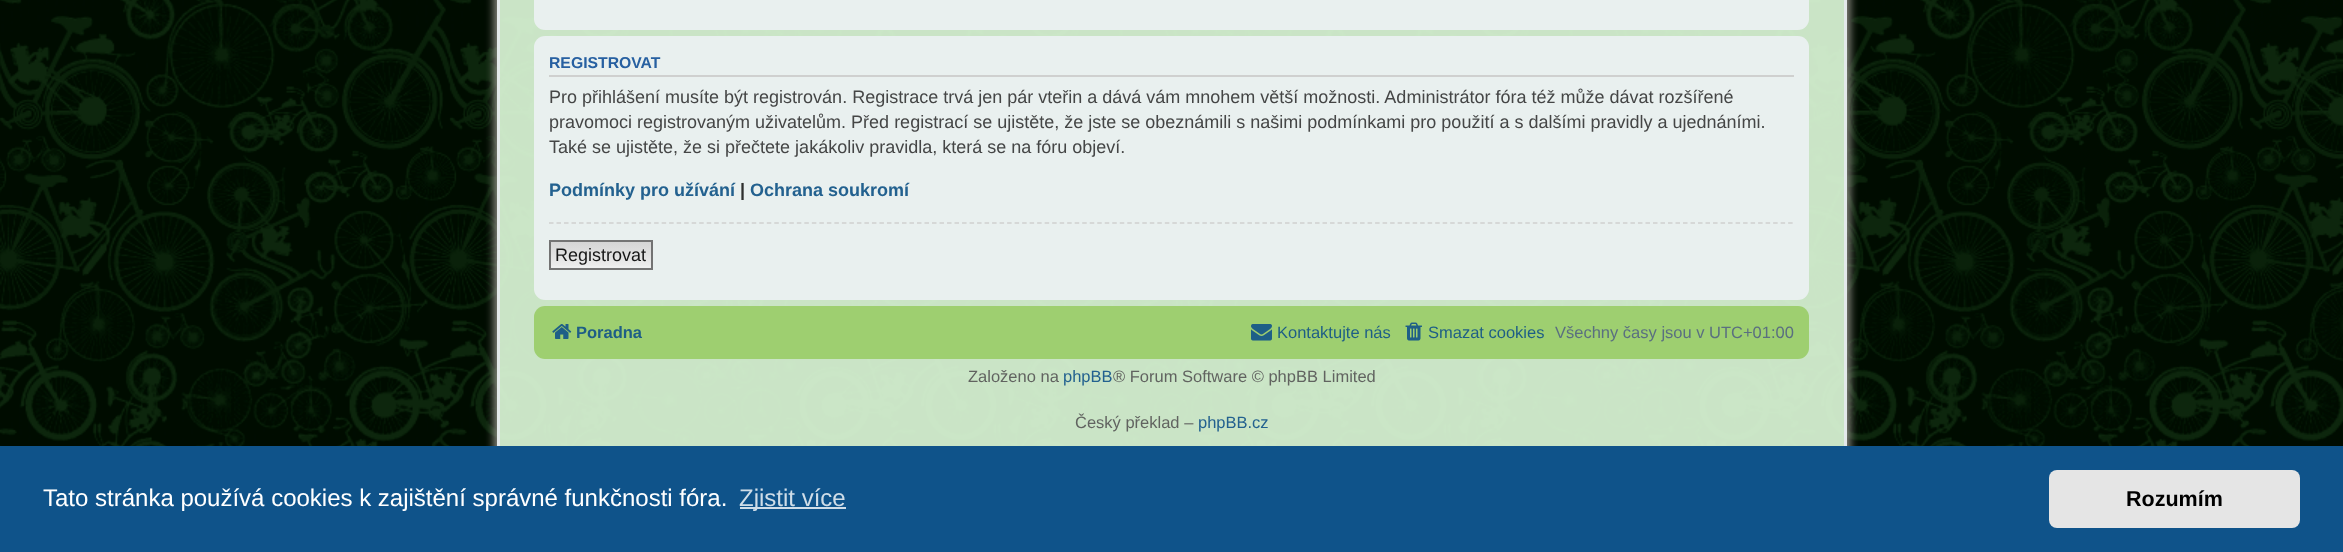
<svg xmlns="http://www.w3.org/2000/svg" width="2343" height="552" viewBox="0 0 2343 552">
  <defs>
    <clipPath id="clip1"><path d="M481 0H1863V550H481ZM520-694H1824C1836.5-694 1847-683.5 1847-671V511C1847 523.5 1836.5 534 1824 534H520C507.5 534 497 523.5 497 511V-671C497-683.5 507.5-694 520-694Z" clip-rule="evenodd"/></clipPath>
    <linearGradient id="g1" gradientUnits="userSpaceOnUse" x1="601" y1="242" x2="601" y2="269"><stop offset="0" stop-color="rgb(213,213,213)"/><stop offset="1" stop-color="rgb(239,239,239)"/></linearGradient>
  </defs>
  <rect width="100%" height="100%" fill="rgb(255,255,255)"/>
  <image x="0" y="0" width="2343" height="446" href="pic1.png"/>
  <g clip-path="url(#clip1)">
    <rect x="494" y="-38" width="1356" height="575" rx="26" fill="rgba(157,154,147,0.9)" filter="blur(4px)"/>
  </g>
  <rect x="497" y="0" width="1350" height="446" fill="rgba(224,252,220,0.9)"/>
  <rect x="498.5" y="-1.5" width="1347" height="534" fill="none" stroke="rgba(230,233,237,0.9)" stroke-width="3"/>
  <rect x="534" y="-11" width="1275" height="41" rx="11" fill="rgba(236,241,243,0.9)"/>
  <rect x="534" y="36" width="1275" height="264" rx="11" fill="rgba(236,241,243,0.9)"/>
  <rect x="549" y="75" width="1245" height="2" fill="rgb(207,208,207)"/>
  <text x="549" y="68" font-family="Liberation Sans" font-size="15.75" font-weight="bold" fill="rgb(39,96,161)">REGISTROVAT</text>
  <g font-family="Liberation Sans" font-size="18" fill="rgb(69,70,70)">
    <text>
      <tspan x="549" y="103">Pro přihlášení musíte být registrován. Registrace trvá jen pár vteřin a dává vám mnohem větší možnosti. Administrátor fóra též může dávat rozšířené</tspan>
      <tspan x="549" y="128">pravomoci registrovaným uživatelům. Před registrací se ujistěte, že jste se obeznámili s našimi podmínkami pro použití a s dalšími pravidly a ujednáními.</tspan>
      <tspan x="549" y="153">Také se ujistěte, že si přečtete jakákoliv pravidla, která se na fóru objeví.</tspan>
    </text>
  </g>
  <text x="549" y="196" font-family="Liberation Sans" font-size="18" font-weight="bold" fill="rgb(35,97,143)">Podmínky pro užívání</text>
  <text x="740" y="196" font-family="Liberation Sans" font-size="18" font-weight="bold" fill="rgb(46,47,46)">|</text>
  <text x="750" y="196" font-family="Liberation Sans" font-size="18" font-weight="bold" fill="rgb(35,97,143)">Ochrana soukromí</text>
  <path d="M549 223H1794" fill="none" stroke="rgb(207,208,207)" stroke-width="1.5" stroke-dasharray="4.5 3.01"/>
  <rect x="549" y="240" width="104" height="30" fill="rgb(238,239,239)"/>
  <rect x="549" y="242" width="104" height="24" fill="url(#g1)"/>
  <rect x="550" y="241" width="102" height="28" fill="none" stroke="rgba(102,102,102,0.9)" stroke-width="2"/>
  <text x="555" y="261" font-family="Liberation Sans" font-size="18" fill="rgb(23,23,23)">Registrovat</text>
  <rect x="534" y="306" width="1275" height="53" rx="11" fill="rgba(153,204,102,0.9)"/>
  <image x="552" y="324" width="20" height="15" href="pic2.png"/>
  <text x="576" y="338" font-family="Liberation Sans" font-size="16.5" font-weight="bold" fill="rgb(30,94,134)">Poradna</text>
  <image x="1251" y="324" width="21" height="17" href="pic3.png"/>
  <text x="1277" y="338" font-family="Liberation Sans" font-size="16.5" fill="rgb(30,94,134)">Kontaktujte nás</text>
  <image x="1405" y="322" width="17" height="19" href="pic4.png"/>
  <text x="1428" y="338" font-family="Liberation Sans" font-size="16.5" fill="rgb(30,94,134)">Smazat cookies</text>
  <text x="1555" y="338" font-family="Liberation Sans" font-size="16.5" fill="rgb(90,111,128)">Všechny časy jsou v UTC+01:00</text>
  <text x="968" y="382" font-family="Liberation Sans" font-size="16.5" fill="rgb(97,99,96)">Založeno na</text>
  <text x="1063" y="382" font-family="Liberation Sans" font-size="16.5" fill="rgb(35,97,143)">phpBB</text>
  <g font-family="Liberation Sans" font-size="16.5" fill="rgb(97,99,96)">
    <text x="1113" y="382">® Forum Software © phpBB Limited</text>
    <text x="1075" y="428">Český překlad –</text>
  </g>
  <text x="1198" y="428" font-family="Liberation Sans" font-size="16.5" fill="rgb(35,97,143)">phpBB.cz</text>
  <rect x="0" y="446" width="2343" height="106" fill="rgb(15,83,138)"/>
  <text x="43" y="506" font-family="Liberation Sans" font-size="24" fill="rgb(255,255,255)">Tato stránka používá cookies k zajištění správné funkčnosti fóra.</text>
  <rect x="740" y="507" width="106" height="2" fill="rgb(207,221,232)"/>
  <text x="739" y="506" font-family="Liberation Sans" font-size="24" fill="rgb(207,221,232)">Zjistit více</text>
  <rect x="2049" y="470" width="251" height="58" rx="8" fill="rgb(229,229,229)"/>
  <text x="2126" y="506" font-family="Liberation Sans" font-size="21.5" font-weight="bold" fill="rgb(0,0,0)">Rozumím</text>
</svg>
